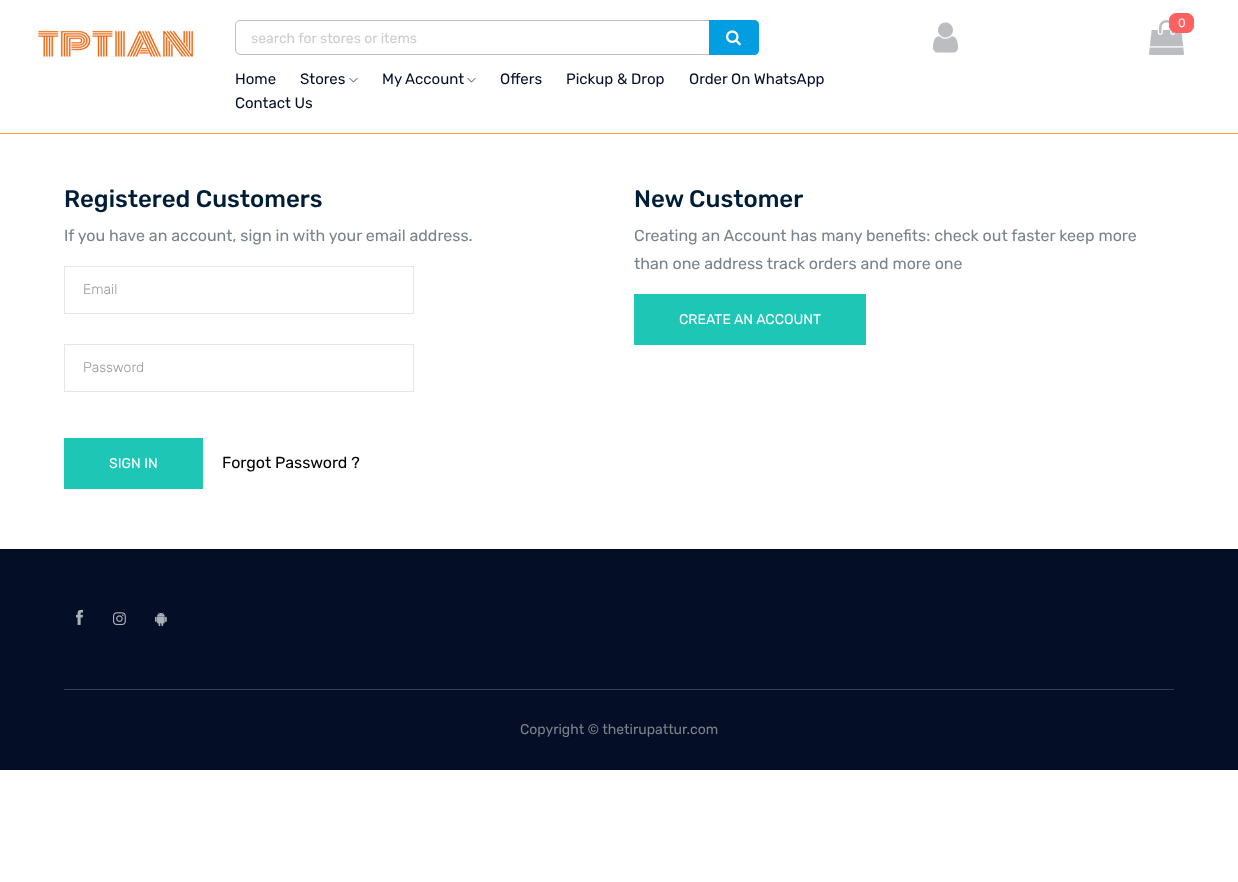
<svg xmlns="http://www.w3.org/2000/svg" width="1238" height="882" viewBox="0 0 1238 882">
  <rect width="100%" height="100%" fill="rgb(255,255,255)"/>
  <image x="933" y="22" width="25" height="31" href="pic1.png"/>
  <image x="1149" y="20" width="35" height="35" href="pic2.png"/>
  <rect x="1169.5" y="13.5" width="24" height="19" rx="6.5" fill="rgb(255,97,97)" stroke="rgb(255,97,97)"/>
  <text x="1178" y="27" font-family="Rubik" font-size="12" fill="rgb(240,240,240)">0</text>
  <image x="38" y="30" width="156" height="27" href="pic3.png"/>
  <rect x="235.5" y="20.5" width="500" height="34" rx="4.5" fill="none" stroke="rgb(187,189,192)"/>
  <text x="251" y="43" font-family="Rubik" font-size="14" fill="rgb(204,204,204)">search for stores or items</text>
  <path d="M709 20H754C757 20 759 22 759 25V50C759 53 757 55 754 55H709Z" fill="rgb(2,158,223)"/>
  <image x="726" y="30" width="15" height="16" href="pic4.png"/>
  <g font-family="Rubik" font-size="15" fill="rgb(4,14,39)">
    <text x="235" y="84">Home</text>
    <text x="300" y="84">Stores</text>
  </g>
  <image x="349" y="78" width="9" height="5" href="pic5.png"/>
  <text x="382" y="84" font-family="Rubik" font-size="15" fill="rgb(4,14,39)">My Account</text>
  <image x="467" y="78" width="9" height="5" href="pic5.png"/>
  <g font-family="Rubik" font-size="15" fill="rgb(4,14,39)">
    <text x="500" y="84">Offers</text>
    <text x="566" y="84">Pickup &amp; Drop</text>
    <text x="689" y="84">Order On WhatsApp</text>
    <text x="235" y="108">Contact Us</text>
  </g>
  <rect x="0" y="133" width="1238" height="1" fill="rgb(255,160,49)"/>
  <text x="64" y="207" font-family="Rubik" font-size="24" font-weight="500" fill="rgb(0,29,56)">Registered Customers</text>
  <text x="64" y="241" font-family="Rubik" font-size="16" fill="rgb(122,131,139)">If you have an account, sign in with your email address.</text>
  <rect x="64.5" y="266.5" width="349" height="47" fill="none" stroke="rgb(229,230,233)"/>
  <text x="83" y="294" font-family="Rubik" font-size="14" font-weight="300" fill="rgb(153,153,153)">Email</text>
  <rect x="64.5" y="344.5" width="349" height="47" fill="none" stroke="rgb(229,230,233)"/>
  <text x="83" y="372" font-family="Rubik" font-size="14" font-weight="300" fill="rgb(153,153,153)">Password</text>
  <rect x="64" y="438" width="139" height="51" fill="rgb(30,198,182)"/>
  <text x="109" y="468" font-family="Rubik" font-size="14" fill="rgb(255,255,255)">SIGN IN</text>
  <text x="222" y="468" font-family="Rubik" font-size="16" fill="rgb(0,0,0)">Forgot Password ?</text>
  <text x="634" y="207" font-family="Rubik" font-size="24" font-weight="500" fill="rgb(0,29,56)">New Customer</text>
  <g font-family="Rubik" font-size="16" fill="rgb(122,131,139)">
    <text>
      <tspan x="634" y="241">Creating an Account has many benefits: check out faster keep more</tspan>
      <tspan x="634" y="269">than one address track orders and more one</tspan>
    </text>
  </g>
  <rect x="634" y="294" width="232" height="51" fill="rgb(30,198,182)"/>
  <text x="679" y="324" font-family="Rubik" font-size="14" fill="rgb(255,255,255)">CREATE AN ACCOUNT</text>
  <rect x="0" y="549" width="1238" height="221" fill="rgb(4,14,39)"/>
  <image x="76" y="609" width="7" height="16" href="pic6.png"/>
  <image x="113" y="612" width="13" height="14" href="pic7.png"/>
  <image x="155" y="612" width="12" height="15" href="pic8.png"/>
  <rect x="64" y="689" width="1110" height="1" fill="rgb(54,62,82)"/>
  <text x="520" y="734" font-family="Rubik" font-size="14" fill="rgb(122,131,139)">Copyright © thetirupattur.com</text>
</svg>
